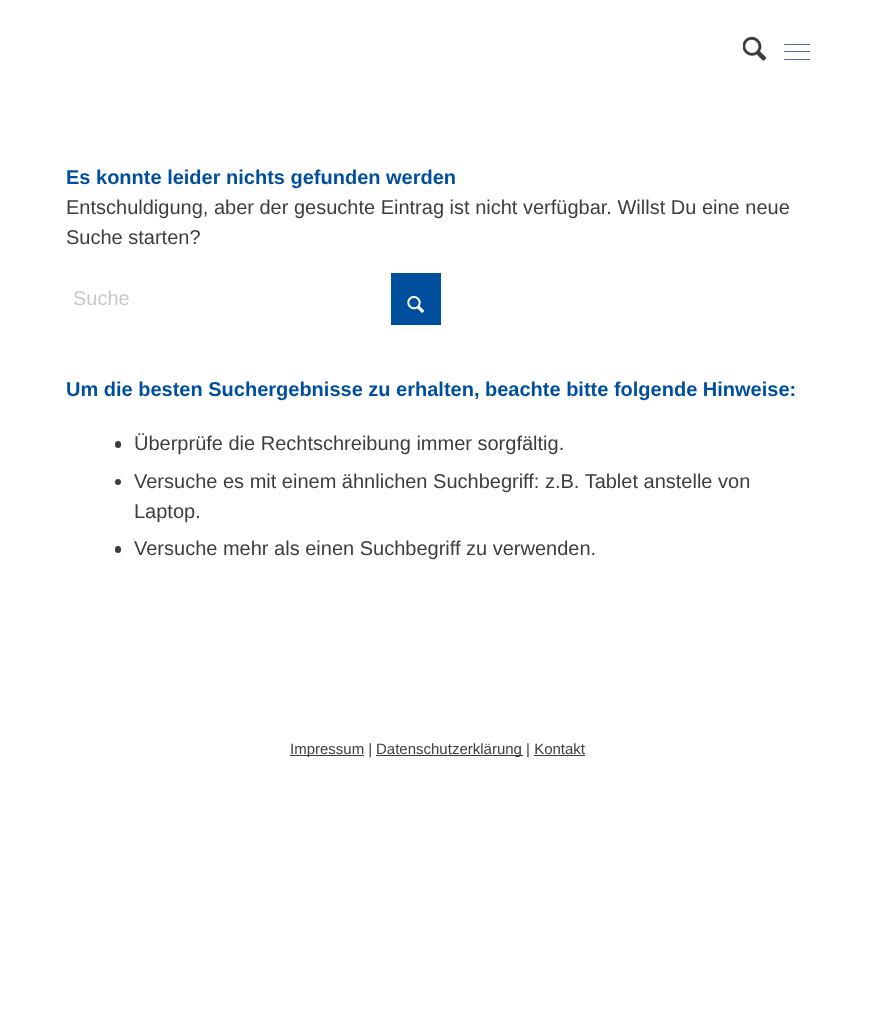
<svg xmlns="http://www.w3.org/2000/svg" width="874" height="1016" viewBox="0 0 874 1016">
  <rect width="100%" height="100%" fill="rgb(255,255,255)"/>
  <image x="743" y="36" width="23" height="25" href="pic1.png"/>
  <rect x="784" y="51" width="26" height="1" rx="0.5" fill="rgb(76,111,149)"/>
  <rect x="784" y="44" width="26" height="1" rx="0.5" fill="rgb(76,111,149)"/>
  <rect x="784" y="59" width="26" height="1" rx="0.5" fill="rgb(76,111,149)"/>
  <text x="66" y="184" font-family="Liberation Sans" font-size="20" font-weight="bold" fill="rgb(0,79,158)">Es konnte leider nichts gefunden werden</text>
  <g font-family="Liberation Sans" font-size="20" fill="rgb(61,61,61)">
    <text>
      <tspan x="66" y="214">Entschuldigung, aber der gesuchte Eintrag ist nicht verfügbar. Willst Du eine neue</tspan>
      <tspan x="66" y="244">Suche starten?</tspan>
    </text>
  </g>
  <text x="73" y="305" font-family="Liberation Sans" font-size="20" fill="rgb(200,200,200)">Suche</text>
  <rect x="391" y="273" width="50" height="52" fill="rgb(0,79,158)"/>
  <image x="407" y="296" width="17" height="17" href="pic2.png"/>
  <text x="66" y="396" font-family="Liberation Sans" font-size="20" font-weight="bold" fill="rgb(0,79,158)">Um die besten Suchergebnisse zu erhalten, beachte bitte folgende Hinweise:</text>
  <rect x="115" y="441" width="6" height="7" rx="3" fill="rgb(61,61,61)"/>
  <text x="134" y="450" font-family="Liberation Sans" font-size="20" fill="rgb(61,61,61)">Überprüfe die Rechtschreibung immer sorgfältig.</text>
  <circle cx="118" cy="482" r="3" fill="rgb(61,61,61)"/>
  <g font-family="Liberation Sans" font-size="20" fill="rgb(61,61,61)">
    <text>
      <tspan x="134" y="488">Versuche es mit einem ähnlichen Suchbegriff: z.B. Tablet anstelle von</tspan>
      <tspan x="134" y="518">Laptop.</tspan>
    </text>
  </g>
  <rect x="115" y="546" width="6" height="7" rx="3" fill="rgb(61,61,61)"/>
  <text x="134" y="555" font-family="Liberation Sans" font-size="20" fill="rgb(61,61,61)">Versuche mehr als einen Suchbegriff zu verwenden.</text>
  <rect x="290" y="755" width="74" height="1" fill="rgb(61,61,61)"/>
  <text x="290" y="754" font-family="Liberation Sans" font-size="15" fill="rgb(61,61,61)">Impressum |</text>
  <rect x="376" y="755" width="147" height="1" fill="rgb(61,61,61)"/>
  <text x="376" y="754" font-family="Liberation Sans" font-size="15" fill="rgb(61,61,61)">Datenschutzerklärung | Kontakt</text>
  <rect x="534" y="755" width="51" height="1" fill="rgb(61,61,61)"/>
</svg>
